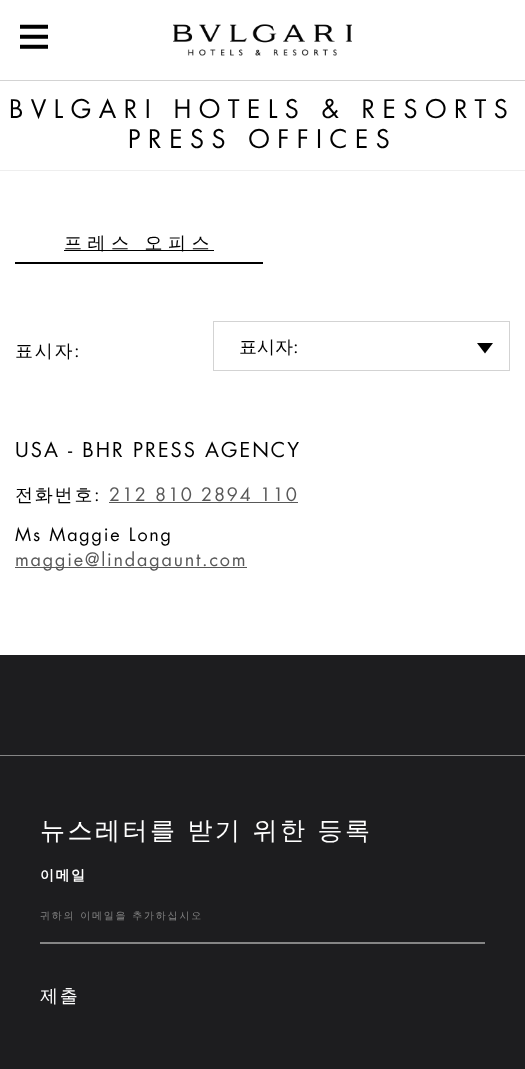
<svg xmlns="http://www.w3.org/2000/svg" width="525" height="1069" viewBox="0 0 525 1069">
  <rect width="100%" height="100%" fill="rgb(255,255,255)"/>
  <rect x="0" y="80" width="525" height="1" fill="rgb(211,211,211)"/>
  <image x="20" y="24" width="28" height="25" href="pic1.png"/>
  <image x="173" y="24" width="179" height="32" href="pic2.png"/>
  <g font-family="Futura" font-size="25" letter-spacing="7.5" fill="rgb(0,0,0)">
    <text x="9" y="118">BVLGARI HOTELS &amp; RESORTS</text>
    <text x="128" y="148">PRESS OFFICES</text>
  </g>
  <rect x="0" y="170" width="525" height="1" fill="rgb(238,238,238)"/>
  <rect x="15" y="262" width="248" height="2" fill="rgb(0,0,0)"/>
  <rect x="64" y="250" width="150" height="1" fill="rgb(0,0,0)"/>
  <text x="64" y="249" word-spacing="-1" font-family="WenQuanYi Zen Hei" font-size="18" font-weight="500" letter-spacing="5.5" fill="rgb(0,0,0)">프레스 오피스</text>
  <text x="15" y="357" font-family="WenQuanYi Zen Hei" font-size="18" font-weight="500" letter-spacing="1.8" fill="rgb(0,0,0)">표시자</text>
  <text x="74" y="357" font-family="Futura" font-size="18" letter-spacing="1.8" fill="rgb(0,0,0)">:</text>
  <rect x="213.5" y="321.5" width="296" height="49" fill="none" stroke="rgb(211,211,211)"/>
  <text x="239" y="353" font-family="WenQuanYi Zen Hei" font-size="18" font-weight="500" fill="rgb(0,0,0)">표시자</text>
  <text x="293" y="353" font-family="Futura" font-size="18" fill="rgb(0,0,0)">:</text>
  <path d="M493 343L485 353.5L477 343Z" fill="rgb(0,0,0)"/>
  <text x="15" y="457" font-family="Futura" font-size="20" letter-spacing="2" fill="rgb(0,0,0)">USA - BHR PRESS AGENCY</text>
  <text x="15" y="501" font-family="WenQuanYi Zen Hei" font-size="18" font-weight="500" letter-spacing="1.8" fill="rgb(0,0,0)">전화번호</text>
  <text x="94" y="501" font-family="Futura" font-size="18" letter-spacing="1.8" fill="rgb(0,0,0)">:</text>
  <text x="109" y="501" font-family="Futura" font-size="18" letter-spacing="1.8" fill="rgb(88,88,88)">212 810 2894 110</text>
  <rect x="109" y="502" width="189" height="1" fill="rgb(88,88,88)"/>
  <text x="15" y="541" font-family="Futura" font-size="18" letter-spacing="1.8" fill="rgb(0,0,0)">Ms Maggie Long</text>
  <rect x="15" y="567" width="232" height="1" fill="rgb(88,88,88)"/>
  <text x="15" y="566" font-family="Futura" font-size="18" letter-spacing="1.8" fill="rgb(88,88,88)">maggie@lindagaunt.com</text>
  <rect x="0" y="655" width="525" height="414" fill="rgb(29,29,31)"/>
  <rect x="0" y="755" width="525" height="1" fill="rgb(133,133,133)"/>
  <text x="40" y="839" font-family="WenQuanYi Zen Hei" font-size="25" font-weight="500" letter-spacing="2.5" fill="rgb(255,255,255)">뉴스레터를 받기 위한 등록</text>
  <text x="40" y="880" font-family="WenQuanYi Zen Hei" font-size="14" font-weight="bold" letter-spacing="1.5" fill="rgb(255,255,255)">이메일</text>
  <rect x="40" y="942" width="445" height="2" fill="rgb(133,133,133)"/>
  <text x="40" y="919" font-family="WenQuanYi Zen Hei" font-size="10" font-weight="500" letter-spacing="1.8" fill="rgb(133,133,133)">귀하의 이메일을 추가하십시오</text>
  <text x="40" y="1002" font-family="WenQuanYi Zen Hei" font-size="18" font-weight="500" letter-spacing="1.8" fill="rgb(255,255,255)">제출</text>
</svg>
